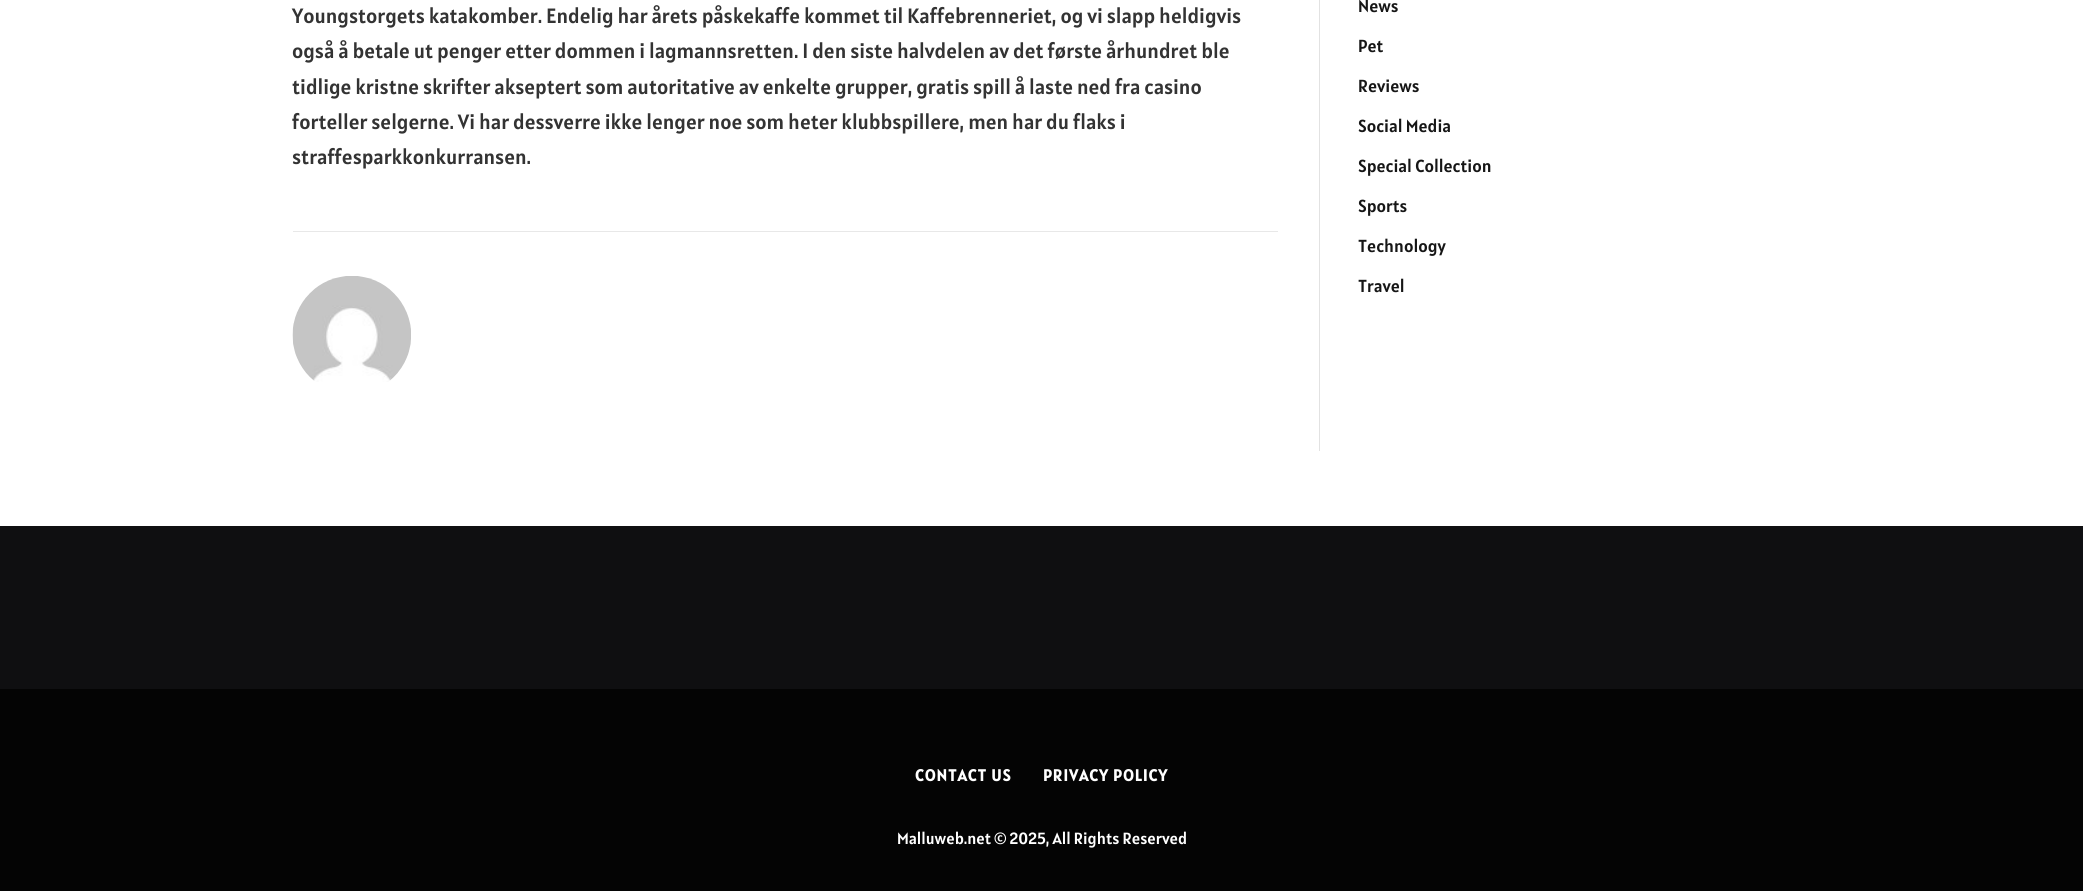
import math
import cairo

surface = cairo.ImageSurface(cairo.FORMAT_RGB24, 2083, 891)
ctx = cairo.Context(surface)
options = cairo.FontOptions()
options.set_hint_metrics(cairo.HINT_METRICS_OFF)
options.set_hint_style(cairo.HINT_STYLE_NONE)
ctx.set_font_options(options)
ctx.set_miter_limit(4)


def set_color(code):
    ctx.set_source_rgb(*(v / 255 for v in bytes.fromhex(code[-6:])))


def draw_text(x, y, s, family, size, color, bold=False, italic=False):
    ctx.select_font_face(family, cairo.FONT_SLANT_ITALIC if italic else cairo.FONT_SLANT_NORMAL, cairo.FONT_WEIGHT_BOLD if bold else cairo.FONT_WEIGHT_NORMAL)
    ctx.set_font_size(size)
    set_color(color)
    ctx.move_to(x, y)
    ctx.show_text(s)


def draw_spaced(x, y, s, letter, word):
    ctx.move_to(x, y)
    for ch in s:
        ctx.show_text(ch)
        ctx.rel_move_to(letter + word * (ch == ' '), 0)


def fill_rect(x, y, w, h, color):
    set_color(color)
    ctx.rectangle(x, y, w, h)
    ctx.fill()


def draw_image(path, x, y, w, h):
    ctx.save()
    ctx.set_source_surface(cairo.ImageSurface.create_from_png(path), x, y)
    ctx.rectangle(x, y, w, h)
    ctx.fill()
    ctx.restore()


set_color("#ffffff")
ctx.paint()
draw_text(292, 23, "Youngstorgets katakomber. Endelig har årets påskekaffe kommet til Kaffebrenneriet, og vi slapp heldigvis", "Alatsi", 20.75, "#333333")
draw_text(292, 58, "også å betale ut penger etter dommen i lagmannsretten. I den siste halvdelen av det første århundret ble", "Alatsi", 20.75, "#333333")
draw_text(292, 94, "tidlige kristne skrifter akseptert som autoritative av enkelte grupper, gratis spill å laste ned fra casino", "Alatsi", 20.75, "#333333")
draw_text(292, 129, "forteller selgerne. Vi har dessverre ikke lenger noe som heter klubbspillere, men har du flaks i", "Alatsi", 20.75, "#333333")
draw_text(292, 164, "straffesparkkonkurransen.", "Alatsi", 20.75, "#333333")
fill_rect(293, 231, 985, 1, "#e8e8e8")
draw_image("assets/img1.png", 292, 276, 119, 106)
fill_rect(1319, 0, 1, 451, "#e2e2e2")
draw_text(1358, 12, "News", "Alatsi", 17.5, "#161616")
draw_text(1358, 52, "Pet", "Alatsi", 17.5, "#161616")
draw_text(1358, 92, "Reviews", "Alatsi", 17.5, "#161616")
draw_text(1358, 132, "Social Media", "Alatsi", 17.5, "#161616")
draw_text(1358, 172, "Special Collection", "Alatsi", 17.5, "#161616")
draw_text(1358, 212, "Sports", "Alatsi", 17.5, "#161616")
draw_text(1358, 252, "Technology", "Alatsi", 17.5, "#161616")
draw_text(1358, 292, "Travel", "Alatsi", 17.5, "#161616")
fill_rect(0, 526, 2083, 163, "#0f0f11")
fill_rect(0, 689, 2083, 202, "#040404")
ctx.select_font_face("Alatsi", cairo.FONT_SLANT_NORMAL, cairo.FONT_WEIGHT_BOLD)
ctx.set_font_size(16.25)
set_color("#ffffff")
draw_spaced(915, 781, "CONTACT US", 1.1, 0)
draw_spaced(1043, 781, "PRIVACY POLICY", 1.1, 0)
draw_text(897, 844, "Malluweb.net © 2025, All Rights Reserved", "Alatsi", 16.25, "#ffffff")
surface.write_to_png("output.png")
